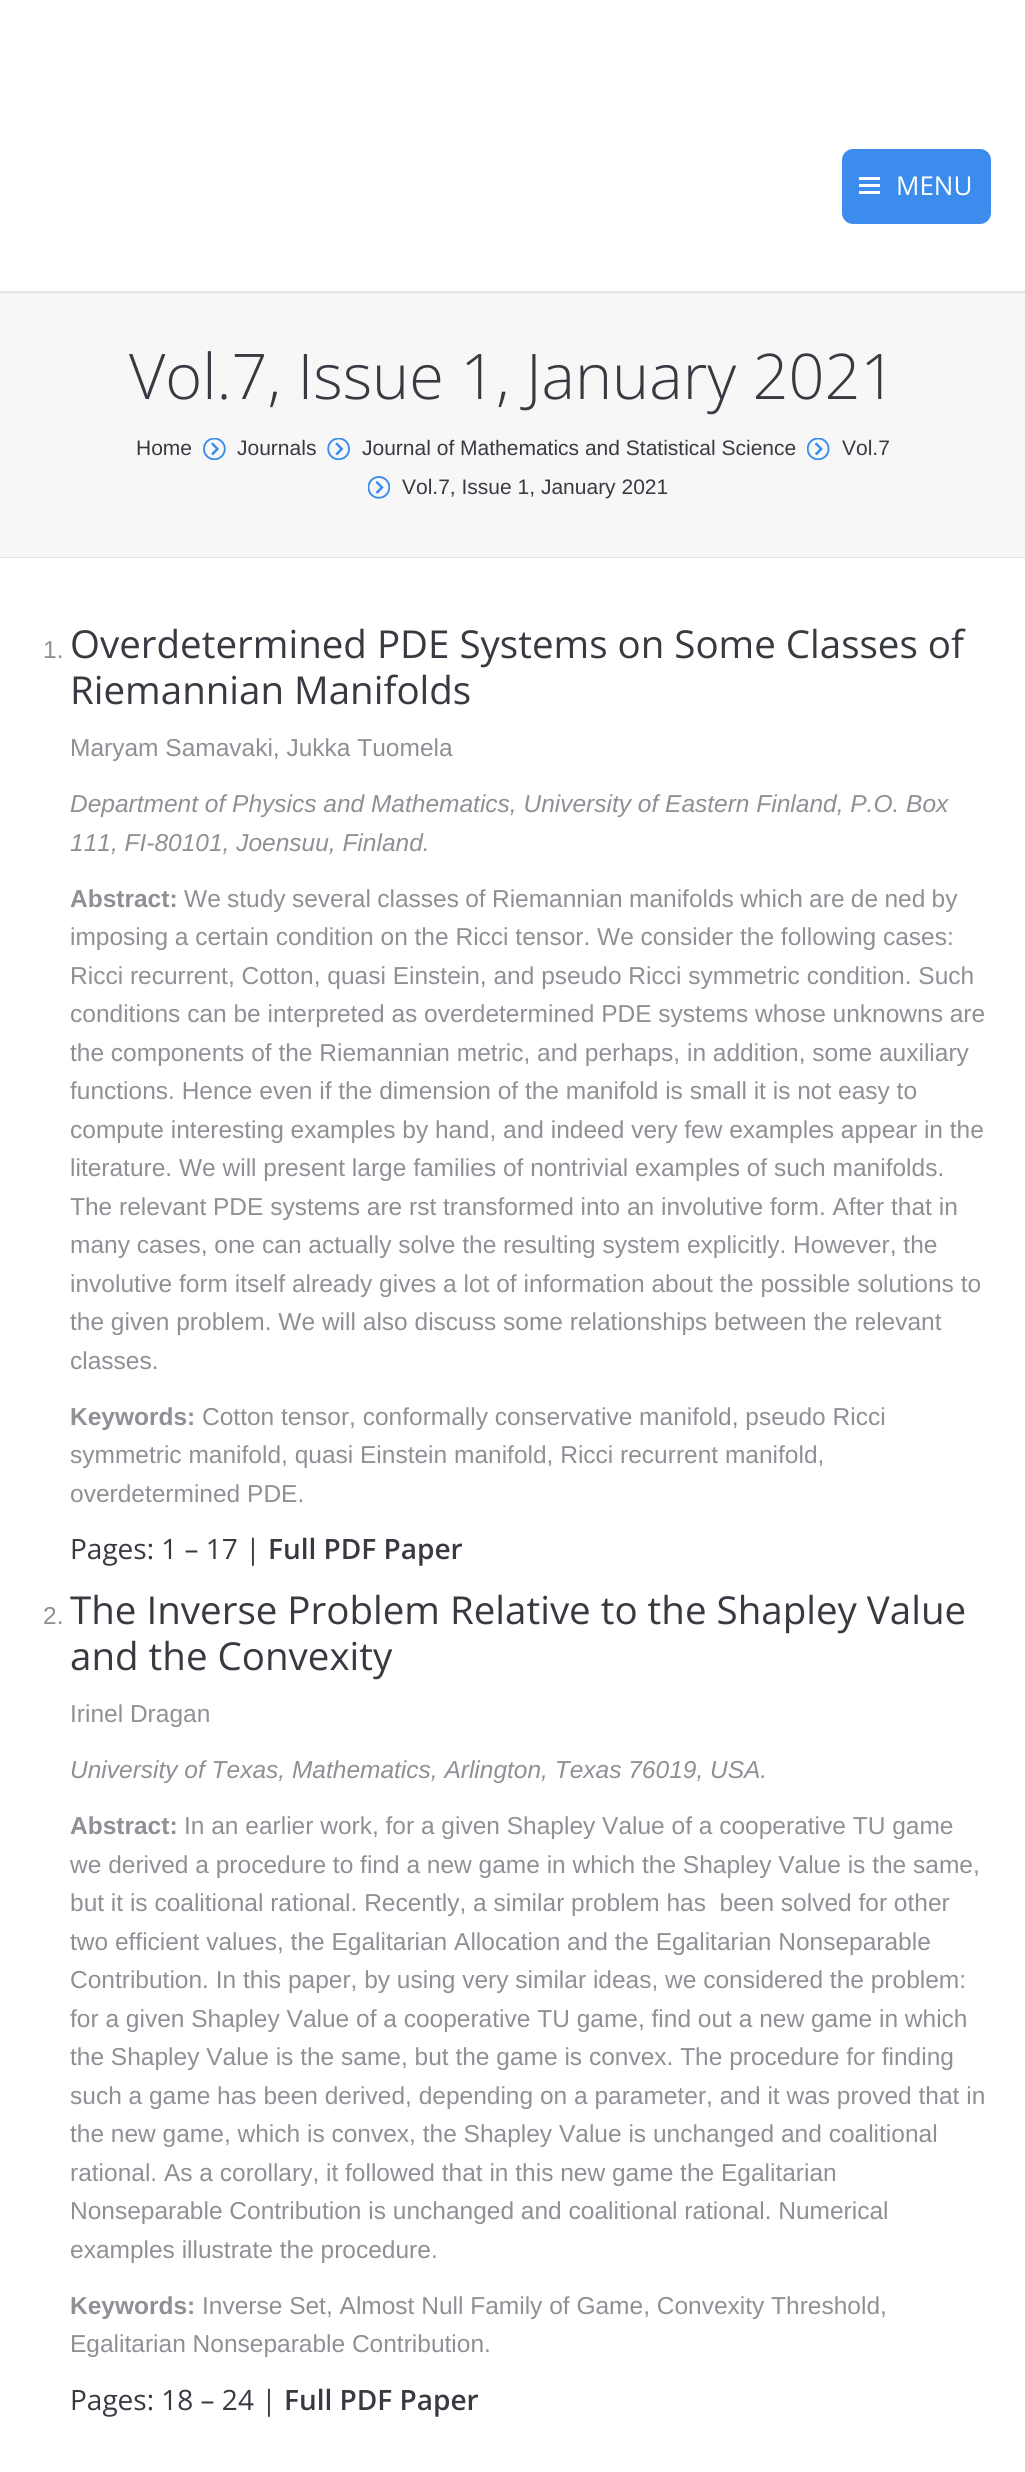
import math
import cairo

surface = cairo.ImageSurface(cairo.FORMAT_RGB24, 1025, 2472)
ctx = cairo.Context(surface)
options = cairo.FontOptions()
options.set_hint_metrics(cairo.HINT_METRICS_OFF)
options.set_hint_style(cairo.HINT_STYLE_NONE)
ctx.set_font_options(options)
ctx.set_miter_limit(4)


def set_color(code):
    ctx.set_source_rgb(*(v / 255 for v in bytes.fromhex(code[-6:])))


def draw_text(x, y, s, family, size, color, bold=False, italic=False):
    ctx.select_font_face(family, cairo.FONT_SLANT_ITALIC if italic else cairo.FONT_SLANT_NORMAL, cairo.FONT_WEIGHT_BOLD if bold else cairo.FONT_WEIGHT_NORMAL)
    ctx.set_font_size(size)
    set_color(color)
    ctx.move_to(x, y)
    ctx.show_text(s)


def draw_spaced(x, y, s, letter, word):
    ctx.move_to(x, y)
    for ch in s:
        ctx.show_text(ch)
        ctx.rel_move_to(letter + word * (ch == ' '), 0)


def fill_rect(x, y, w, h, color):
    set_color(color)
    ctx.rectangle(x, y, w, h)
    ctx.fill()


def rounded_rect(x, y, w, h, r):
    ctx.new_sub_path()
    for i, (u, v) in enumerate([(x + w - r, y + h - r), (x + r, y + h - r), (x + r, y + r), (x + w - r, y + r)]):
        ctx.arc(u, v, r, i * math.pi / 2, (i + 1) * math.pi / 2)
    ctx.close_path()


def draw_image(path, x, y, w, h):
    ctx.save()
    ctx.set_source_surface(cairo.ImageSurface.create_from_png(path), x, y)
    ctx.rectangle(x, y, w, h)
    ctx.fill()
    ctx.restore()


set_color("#ffffff")
ctx.paint()
fill_rect(0, 293, 1025, 264, "#f7f7f7")
fill_rect(0, 291, 1025, 1, "#e5e8ea")
fill_rect(0, 292, 1025, 1, "#dee1e3")
set_color("#3b8ced")
rounded_rect(842, 149, 149, 75, 11)
ctx.fill()
fill_rect(859, 191, 21, 3, "#ffffff")
fill_rect(859, 184, 21, 3, "#ffffff")
fill_rect(859, 177, 21, 3, "#ffffff")
draw_text(896, 195, "MENU", "Open Sans", 26, "#ffffff")
draw_text(129, 399, "Vol.7, Issue 1, January 2021", "Open Sans Light", 63, "#373a41")
draw_text(136, 455, "Home", "Liberation Sans", 21, "#373a41")
draw_image("assets/img1.png", 203, 438, 23, 22)
draw_text(237, 455, "Journals", "Liberation Sans", 21, "#373a41")
draw_image("assets/img2.png", 327, 438, 23, 22)
draw_text(362, 455, "Journal of Mathematics and Statistical Science", "Liberation Sans", 21, "#373a41")
draw_image("assets/img3.png", 807, 438, 23, 22)
draw_text(842, 455, "Vol.7", "Liberation Sans", 21, "#373a41")
draw_image("assets/img4.png", 368, 476, 22, 23)
draw_text(402, 494, "Vol.7, Issue 1, January 2021", "Liberation Sans", 21, "#373a41")
fill_rect(0, 557, 1025, 1, "#e3e6e8")
draw_text(43, 658, "1.", "Liberation Sans", 24.5, "#8d9095")
draw_text(70, 658, "Overdetermined PDE Systems on Some Classes of", "Open Sans", 38.5, "#373a41")
draw_text(70, 704, "Riemannian Manifolds", "Open Sans", 38.5, "#373a41")
draw_text(70, 756, "Maryam Samavaki, Jukka Tuomela", "Liberation Sans", 24.5, "#8d9095")
draw_text(70, 812, "Department of Physics and Mathematics, University of Eastern Finland, P.O. Box", "Liberation Sans", 24.5, "#8d9095", italic=True)
draw_text(70, 851, "111, FI-80101, Joensuu, Finland.", "Liberation Sans", 24.5, "#8d9095", italic=True)
draw_text(70, 907, "Abstract:", "Liberation Sans", 24.5, "#8d9095", bold=True)
ctx.select_font_face("Liberation Sans")
draw_spaced(184, 907, "We study several classes of Riemannian manifolds which are de ned by", 0, -0.5)
draw_text(70, 945, "imposing a certain condition on the Ricci tensor. We consider the following cases:", "Liberation Sans", 24.5, "#8d9095")
draw_text(70, 984, "Ricci recurrent, Cotton, quasi Einstein, and pseudo Ricci symmetric condition. Such", "Liberation Sans", 24.5, "#8d9095")
draw_text(70, 1022, "conditions can be interpreted as overdetermined PDE systems whose unknowns are", "Liberation Sans", 24.5, "#8d9095")
draw_text(70, 1061, "the components of the Riemannian metric, and perhaps, in addition, some auxiliary", "Liberation Sans", 24.5, "#8d9095")
draw_text(70, 1099, "functions. Hence even if the dimension of the manifold is small it is not easy to", "Liberation Sans", 24.5, "#8d9095")
draw_text(70, 1138, "compute interesting examples by hand, and indeed very few examples appear in the", "Liberation Sans", 24.5, "#8d9095")
draw_text(70, 1176, "literature. We will present large families of nontrivial examples of such manifolds.", "Liberation Sans", 24.5, "#8d9095")
draw_text(70, 1215, "The relevant PDE systems are rst transformed into an involutive form. After that in", "Liberation Sans", 24.5, "#8d9095")
draw_text(70, 1253, "many cases, one can actually solve the resulting system explicitly. However, the", "Liberation Sans", 24.5, "#8d9095")
draw_text(70, 1292, "involutive form itself already gives a lot of information about the possible solutions to", "Liberation Sans", 24.5, "#8d9095")
draw_text(70, 1330, "the given problem. We will also discuss some relationships between the relevant", "Liberation Sans", 24.5, "#8d9095")
draw_text(70, 1369, "classes.", "Liberation Sans", 24.5, "#8d9095")
draw_text(70, 1425, "Keywords:", "Liberation Sans", 24.5, "#8d9095", bold=True)
draw_text(202, 1425, "Cotton tensor, conformally conservative manifold, pseudo Ricci", "Liberation Sans", 24.5, "#8d9095")
draw_text(70, 1463, "symmetric manifold, quasi Einstein manifold, Ricci recurrent manifold,", "Liberation Sans", 24.5, "#8d9095")
draw_text(70, 1502, "overdetermined PDE.", "Liberation Sans", 24.5, "#8d9095")
draw_text(70, 1559, "Pages: 1 – 17 |", "Open Sans", 28, "#373a41")
draw_text(268, 1559, "Full PDF Paper", "Open Sans SemiBold", 28, "#373a41")
draw_text(43, 1624, "2.", "Liberation Sans", 24.5, "#8d9095")
draw_text(70, 1624, "The Inverse Problem Relative to the Shapley Value", "Open Sans", 38.5, "#373a41")
draw_text(70, 1670, "and the Convexity", "Open Sans", 38.5, "#373a41")
draw_text(70, 1722, "Irinel Dragan", "Liberation Sans", 24.5, "#8d9095")
draw_text(70, 1778, "University of Texas, Mathematics, Arlington, Texas 76019, USA.", "Liberation Sans", 24.5, "#8d9095", italic=True)
draw_text(70, 1834, "Abstract:", "Liberation Sans", 24.5, "#8d9095", bold=True)
draw_text(184, 1834, "In an earlier work, for a given Shapley Value of a cooperative TU game", "Liberation Sans", 24.5, "#8d9095")
draw_text(70, 1873, "we derived a procedure to find a new game in which the Shapley Value is the same,", "Liberation Sans", 24.5, "#8d9095")
draw_text(70, 1911, "but it is coalitional rational. Recently, a similar problem has  been solved for other", "Liberation Sans", 24.5, "#8d9095")
draw_text(70, 1950, "two efficient values, the Egalitarian Allocation and the Egalitarian Nonseparable", "Liberation Sans", 24.5, "#8d9095")
draw_text(70, 1988, "Contribution. In this paper, by using very similar ideas, we considered the problem:", "Liberation Sans", 24.5, "#8d9095")
draw_text(70, 2027, "for a given Shapley Value of a cooperative TU game, find out a new game in which", "Liberation Sans", 24.5, "#8d9095")
draw_text(70, 2065, "the Shapley Value is the same, but the game is convex. The procedure for finding", "Liberation Sans", 24.5, "#8d9095")
draw_text(70, 2104, "such a game has been derived, depending on a parameter, and it was proved that in", "Liberation Sans", 24.5, "#8d9095")
draw_text(70, 2142, "the new game, which is convex, the Shapley Value is unchanged and coalitional", "Liberation Sans", 24.5, "#8d9095")
draw_text(70, 2181, "rational. As a corollary, it followed that in this new game the Egalitarian", "Liberation Sans", 24.5, "#8d9095")
draw_text(70, 2219, "Nonseparable Contribution is unchanged and coalitional rational. Numerical", "Liberation Sans", 24.5, "#8d9095")
draw_text(70, 2258, "examples illustrate the procedure.", "Liberation Sans", 24.5, "#8d9095")
draw_text(70, 2314, "Keywords:", "Liberation Sans", 24.5, "#8d9095", bold=True)
draw_text(202, 2314, "Inverse Set, Almost Null Family of Game, Convexity Threshold,", "Liberation Sans", 24.5, "#8d9095")
draw_text(70, 2352, "Egalitarian Nonseparable Contribution.", "Liberation Sans", 24.5, "#8d9095")
draw_text(70, 2410, "Pages: 18 – 24 |", "Open Sans", 28, "#373a41")
draw_text(284, 2410, "Full PDF Paper", "Open Sans SemiBold", 28, "#373a41")
surface.write_to_png("output.png")
